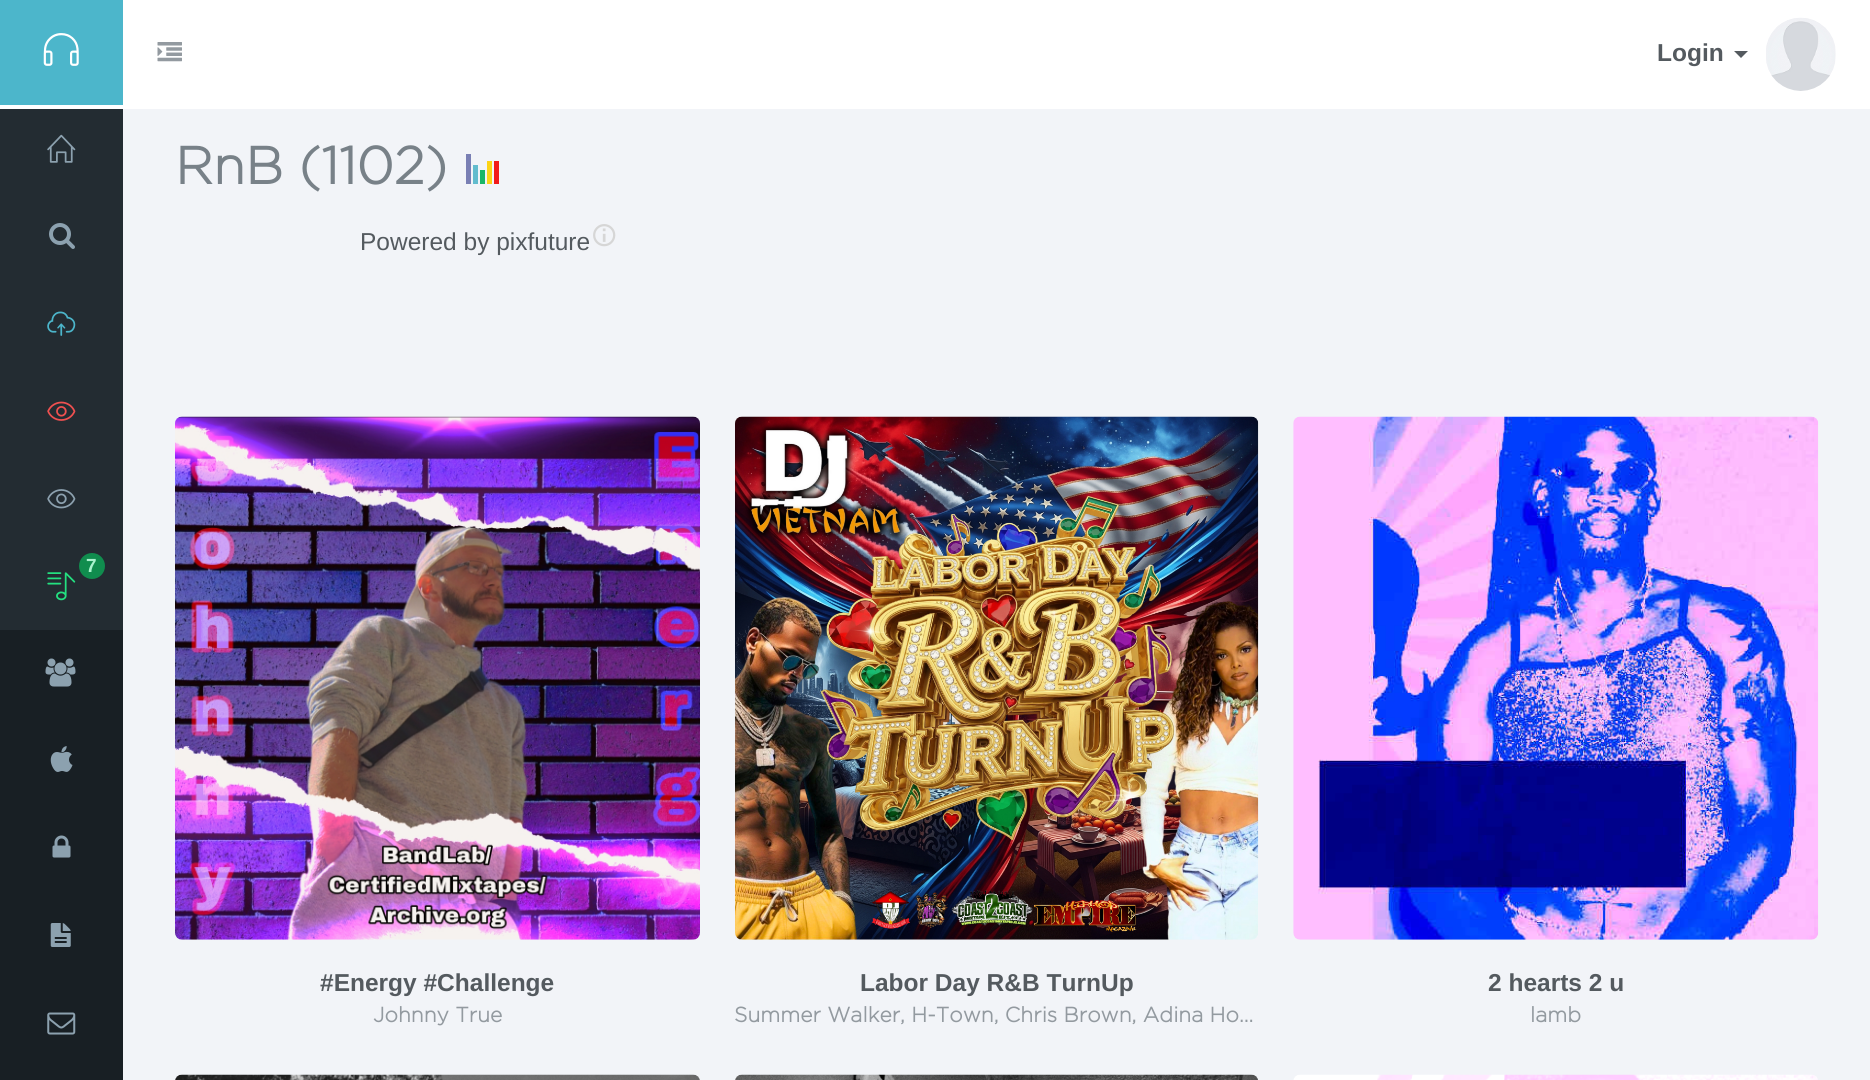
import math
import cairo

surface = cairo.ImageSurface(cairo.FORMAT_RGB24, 1870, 1080)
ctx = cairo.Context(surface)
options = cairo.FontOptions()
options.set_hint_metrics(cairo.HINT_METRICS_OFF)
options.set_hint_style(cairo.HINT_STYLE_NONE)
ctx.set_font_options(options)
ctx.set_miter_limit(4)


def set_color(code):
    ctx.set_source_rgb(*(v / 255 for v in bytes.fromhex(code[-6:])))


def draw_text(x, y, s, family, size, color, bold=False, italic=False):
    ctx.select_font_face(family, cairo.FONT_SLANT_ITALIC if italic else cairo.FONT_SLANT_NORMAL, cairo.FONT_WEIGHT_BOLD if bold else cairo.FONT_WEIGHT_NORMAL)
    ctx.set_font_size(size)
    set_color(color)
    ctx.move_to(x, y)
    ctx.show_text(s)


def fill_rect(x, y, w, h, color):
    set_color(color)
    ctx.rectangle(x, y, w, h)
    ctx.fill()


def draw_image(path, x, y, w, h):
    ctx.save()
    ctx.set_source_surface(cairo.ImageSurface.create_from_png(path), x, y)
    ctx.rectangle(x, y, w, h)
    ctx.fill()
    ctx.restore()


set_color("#f2f4f8")
ctx.paint()
fill_rect(0, 0, 1870, 109, "#ffffff")
fill_rect(0, 0, 123, 105, "#4cb6cb")
draw_image("assets/img1.png", 43, 33, 36, 33)
draw_image("assets/img2.png", 157, 42, 25, 20)
draw_text(1657, 61, "Login", "Liberation Sans", 24.5, "#545a5f", bold=True)
ctx.new_path()
ctx.move_to(1734, 51)
ctx.line_to(1748, 51)
ctx.line_to(1741, 58)
ctx.close_path()
ctx.fill()
draw_image("assets/img3.png", 1766, 17, 70, 74)
fill_rect(0, 630, 123, 450, "#181f24")
fill_rect(0, 109, 123, 521, "#232c32")
draw_image("assets/img4.png", 47, 134, 29, 29)
draw_image("assets/img5.png", 49, 223, 26, 26)
draw_image("assets/img6.png", 47, 311, 29, 25)
draw_image("assets/img7.png", 47, 401, 29, 20)
draw_image("assets/img8.png", 47, 489, 29, 20)
set_color("#108d4e")
ctx.arc(92, 566, 13, 0, 2 * math.pi)
ctx.fill()
draw_text(86, 572, "7", "Liberation Sans", 19, "#a9f3ce", bold=True)
draw_image("assets/img9.png", 47, 572, 29, 29)
draw_image("assets/img10.png", 45, 658, 31, 29)
draw_image("assets/img11.png", 50, 746, 23, 26)
draw_image("assets/img12.png", 52, 835, 19, 23)
draw_image("assets/img13.png", 50, 923, 21, 24)
draw_image("assets/img14.png", 47, 1012, 29, 23)
draw_text(175, 184, "RnB (1102)", "Gotham", 52.5, "#788188", bold=True)
fill_rect(466, 154, 5, 30, "#797fb4")
fill_rect(473, 165, 5, 19, "#62bcce")
fill_rect(480, 170, 5, 14, "#1ab667")
fill_rect(487, 161, 5, 23, "#fcd417")
fill_rect(494, 161, 5, 23, "#f21b1b")
draw_text(360, 250, "Powered by pixfuture", "Liberation Sans", 24.5, "#545a5f")
draw_image("assets/img15.png", 593, 224, 23, 23)
draw_image("assets/img16.png", 175, 416, 525, 524)
draw_text(320, 991, "#Energy #Challenge", "Liberation Sans", 24.5, "#545a5f", bold=True)
draw_text(373, 1022, "Johnny True", "Gotham", 21, "#939aa0", bold=True)
draw_image("assets/img17.png", 735, 416, 524, 524)
draw_text(860, 991, "Labor Day R&B TurnUp", "Liberation Sans", 24.5, "#545a5f", bold=True)
draw_text(734, 1022, "Summer Walker, H-Town, Chris Brown, Adina Ho…", "Gotham", 21, "#939aa0", bold=True)
draw_image("assets/img18.png", 1293, 416, 526, 524)
draw_text(1488, 991, "2 hearts 2 u", "Liberation Sans", 24.5, "#545a5f", bold=True)
draw_text(1530, 1022, "lamb", "Gotham", 21, "#939aa0", bold=True)
draw_image("assets/img19.png", 175, 1074, 525, 6)
draw_image("assets/img20.png", 735, 1074, 523, 6)
draw_image("assets/img21.png", 1293, 1074, 525, 6)
surface.write_to_png("output.png")
